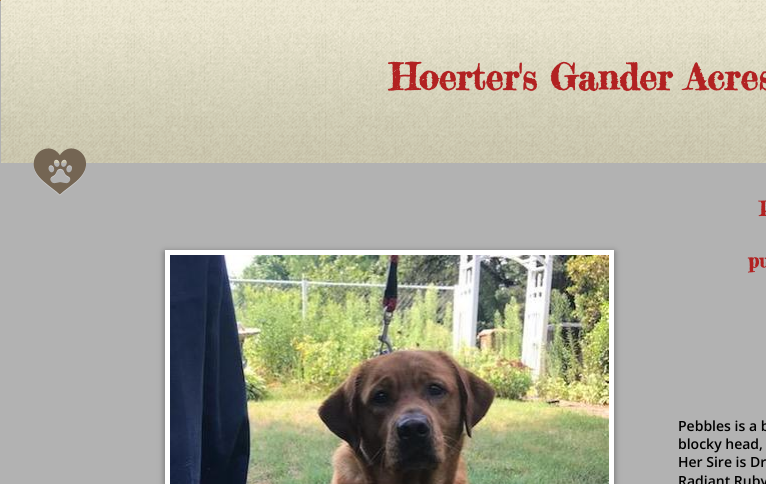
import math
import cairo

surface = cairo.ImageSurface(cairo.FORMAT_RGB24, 766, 484)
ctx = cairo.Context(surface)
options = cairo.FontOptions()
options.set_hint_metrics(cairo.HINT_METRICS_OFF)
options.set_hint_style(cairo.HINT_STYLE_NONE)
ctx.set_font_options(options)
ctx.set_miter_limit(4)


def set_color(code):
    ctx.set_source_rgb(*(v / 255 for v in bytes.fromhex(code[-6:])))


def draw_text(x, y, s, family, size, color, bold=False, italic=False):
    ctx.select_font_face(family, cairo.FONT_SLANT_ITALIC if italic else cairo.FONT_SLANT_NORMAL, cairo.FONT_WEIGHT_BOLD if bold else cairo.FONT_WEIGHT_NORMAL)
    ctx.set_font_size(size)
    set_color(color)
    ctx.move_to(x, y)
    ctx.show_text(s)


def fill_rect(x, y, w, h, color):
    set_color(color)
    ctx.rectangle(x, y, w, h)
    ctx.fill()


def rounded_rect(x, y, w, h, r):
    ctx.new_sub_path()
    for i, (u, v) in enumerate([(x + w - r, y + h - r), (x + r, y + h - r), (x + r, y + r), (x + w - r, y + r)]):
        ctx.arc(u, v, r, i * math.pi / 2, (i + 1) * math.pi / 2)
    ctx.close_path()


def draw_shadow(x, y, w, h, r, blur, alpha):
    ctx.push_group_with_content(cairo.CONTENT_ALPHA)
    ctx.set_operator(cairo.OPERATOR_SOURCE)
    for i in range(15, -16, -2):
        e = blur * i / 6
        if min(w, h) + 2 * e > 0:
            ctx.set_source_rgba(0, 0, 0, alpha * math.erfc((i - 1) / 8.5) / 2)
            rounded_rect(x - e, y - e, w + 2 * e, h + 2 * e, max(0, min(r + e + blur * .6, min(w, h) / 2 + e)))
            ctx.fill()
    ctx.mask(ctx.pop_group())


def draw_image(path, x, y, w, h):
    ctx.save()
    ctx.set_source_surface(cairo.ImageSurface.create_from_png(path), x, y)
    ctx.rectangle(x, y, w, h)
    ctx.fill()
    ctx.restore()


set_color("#b2b2b2")
ctx.paint()
fill_rect(0, 0, 1, 1, "#a38154")
draw_image("assets/img1.png", 1, 0, 765, 163)
draw_text(389, 90, "Hoerter's Gander Acres", "Fredericka the Great", 36, "#b22222", bold=True)
draw_image("assets/img2.png", 33, 148, 54, 48)
set_color("#323232")
draw_shadow(165, 252, 449, 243, 0, 3.5, 0.6)
ctx.rectangle(167.5, 252.5, 444, 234)
set_color("#ffffff")
ctx.set_line_width(5)
ctx.stroke()
draw_image("assets/img3.png", 170, 255, 439, 229)
draw_text(759, 216, "I", "Fredericka the Great", 20, "#b22222", bold=True)
draw_text(748, 268, "pu", "Fredericka the Great", 20, "#b22222", bold=True)
draw_text(678, 431, "Pebbles is a b", "Open Sans SemiBold", 14, "#000000")
draw_text(678, 449, "blocky head,", "Open Sans SemiBold", 14, "#000000")
draw_text(678, 467, "Her Sire is Dr", "Open Sans SemiBold", 14, "#000000")
draw_text(678, 486, "Radiant Ruby", "Open Sans SemiBold", 14, "#000000")
surface.write_to_png("output.png")
